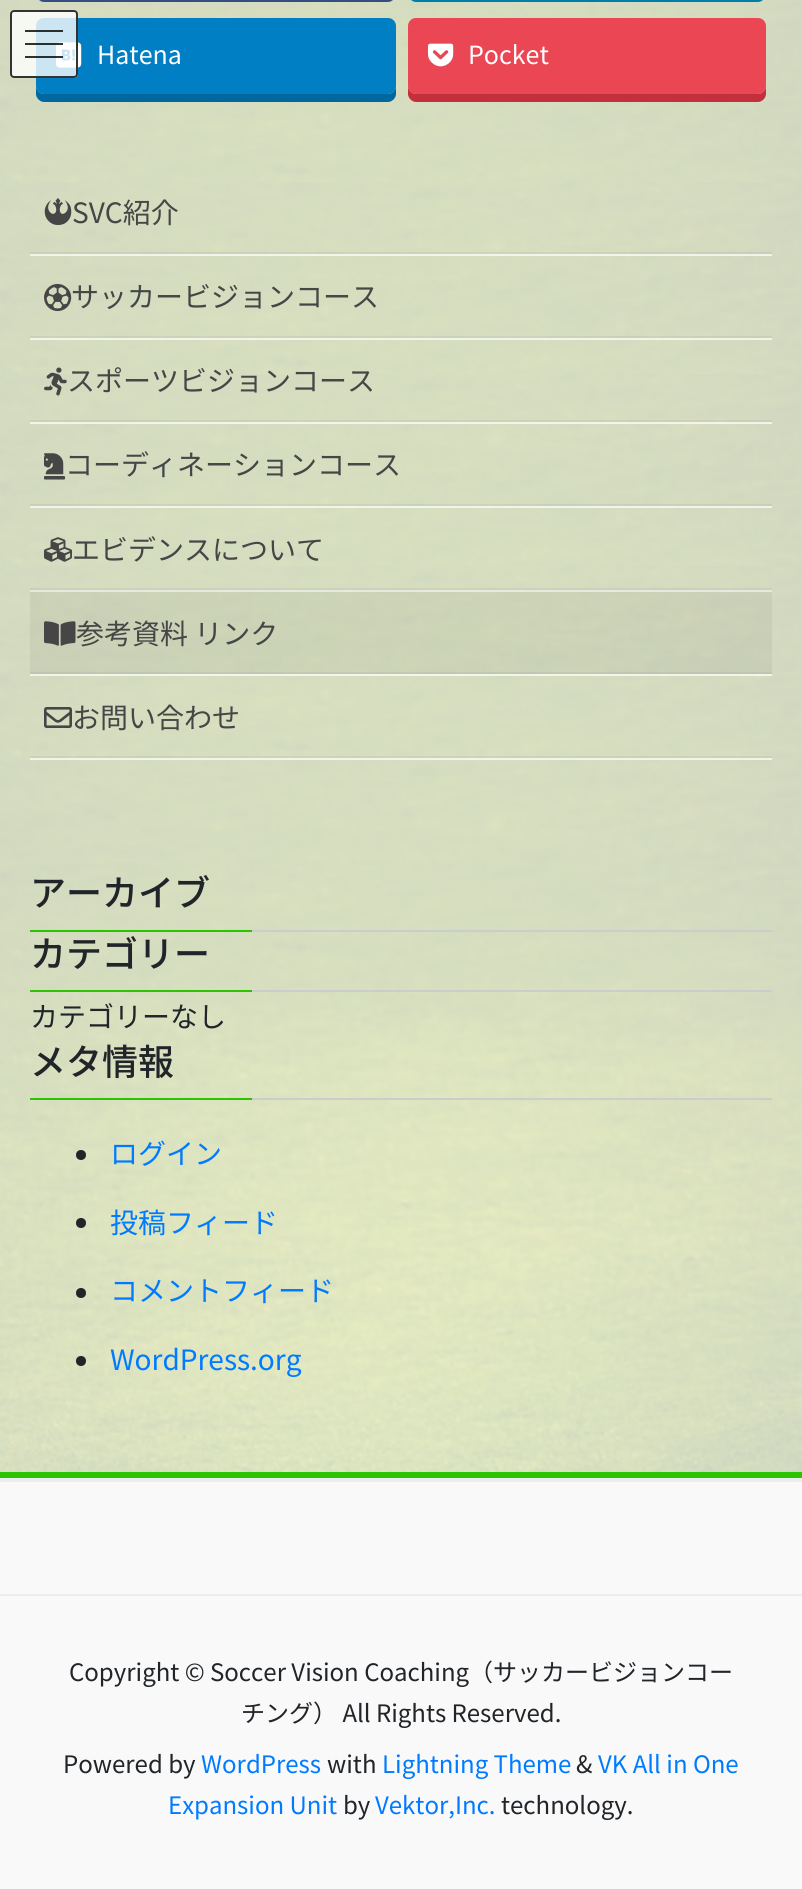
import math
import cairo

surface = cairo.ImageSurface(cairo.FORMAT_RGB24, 802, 1889)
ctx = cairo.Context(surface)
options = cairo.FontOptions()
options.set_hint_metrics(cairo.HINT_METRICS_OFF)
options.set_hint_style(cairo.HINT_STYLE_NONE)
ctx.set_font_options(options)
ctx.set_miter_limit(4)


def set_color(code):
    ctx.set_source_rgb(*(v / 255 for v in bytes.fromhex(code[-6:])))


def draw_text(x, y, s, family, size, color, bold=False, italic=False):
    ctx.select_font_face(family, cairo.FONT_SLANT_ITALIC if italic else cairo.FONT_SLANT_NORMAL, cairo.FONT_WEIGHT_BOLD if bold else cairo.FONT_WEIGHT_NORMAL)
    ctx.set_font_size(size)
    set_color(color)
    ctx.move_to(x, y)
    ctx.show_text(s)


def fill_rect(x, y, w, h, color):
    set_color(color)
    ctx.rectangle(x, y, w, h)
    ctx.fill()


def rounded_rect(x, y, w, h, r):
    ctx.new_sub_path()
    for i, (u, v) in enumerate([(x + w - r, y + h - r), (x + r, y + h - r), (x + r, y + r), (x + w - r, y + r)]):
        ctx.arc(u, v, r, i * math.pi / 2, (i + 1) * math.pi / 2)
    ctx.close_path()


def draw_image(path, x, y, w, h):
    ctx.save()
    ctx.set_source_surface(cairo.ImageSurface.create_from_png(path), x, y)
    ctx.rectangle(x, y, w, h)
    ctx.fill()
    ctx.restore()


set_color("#ffffff")
ctx.paint()
draw_image("assets/img1.png", 0, 0, 802, 1472)
set_color("#00679f")
ctx.new_path()
ctx.move_to(36, 86)
ctx.line_to(36, 94)
ctx.curve_to(36, 98, 40, 102, 44, 102)
ctx.line_to(388, 102)
ctx.curve_to(392, 102, 396, 98, 396, 94)
ctx.line_to(396, 86)
ctx.curve_to(396, 90, 392, 94, 388, 94)
ctx.line_to(44, 94)
ctx.curve_to(40, 94, 36, 90, 36, 86)
ctx.close_path()
ctx.fill()
set_color("#007fc5")
rounded_rect(36, 18, 360, 76, 8)
ctx.fill()
draw_image("assets/img2.png", 56, 42, 26, 26)
ctx.set_source_rgba(1, 1, 1, 0.8)
rounded_rect(10, 10, 68, 68, 4)
ctx.fill()
ctx.set_source_rgba(0, 0, 0, 0.8)
ctx.rectangle(25, 30, 38, 2)
ctx.fill()
ctx.rectangle(25, 43, 38, 2)
ctx.fill()
ctx.rectangle(25, 56, 38, 2)
ctx.fill()
rounded_rect(11, 11, 66, 66, 3)
set_color("#333333")
ctx.stroke()
set_color("#344e84")
ctx.new_path()
ctx.move_to(36, -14)
ctx.line_to(36, -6)
ctx.curve_to(36, -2, 40, 2, 44, 2)
ctx.line_to(388, 2)
ctx.curve_to(392, 2, 396, -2, 396, -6)
ctx.line_to(396, -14)
ctx.curve_to(396, -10, 392, -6, 388, -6)
ctx.line_to(44, -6)
ctx.curve_to(40, -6, 36, -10, 36, -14)
ctx.close_path()
ctx.fill()
set_color("#007eaa")
ctx.new_path()
ctx.move_to(408, -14)
ctx.line_to(408, -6)
ctx.curve_to(408, -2, 412, 2, 416, 2)
ctx.line_to(758, 2)
ctx.curve_to(762, 2, 766, -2, 766, -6)
ctx.line_to(766, -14)
ctx.curve_to(766, -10, 762, -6, 758, -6)
ctx.line_to(416, -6)
ctx.curve_to(412, -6, 408, -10, 408, -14)
ctx.close_path()
ctx.fill()
draw_text(97, 64, "Hatena", "Noto Sans JP", 25, "#ffffff")
set_color("#c1303c")
ctx.new_path()
ctx.move_to(408, 86)
ctx.line_to(408, 94)
ctx.curve_to(408, 98, 412, 102, 416, 102)
ctx.line_to(758, 102)
ctx.curve_to(762, 102, 766, 98, 766, 94)
ctx.line_to(766, 86)
ctx.curve_to(766, 90, 762, 94, 758, 94)
ctx.line_to(416, 94)
ctx.curve_to(412, 94, 408, 90, 408, 86)
ctx.close_path()
ctx.fill()
set_color("#ea4654")
rounded_rect(408, 18, 358, 76, 8)
ctx.fill()
draw_image("assets/img3.png", 428, 43, 26, 24)
draw_text(468, 64, "Pocket", "Noto Sans JP", 25, "#ffffff")
ctx.set_source_rgba(1, 1, 1, 0.7)
ctx.rectangle(30, 254, 742, 2)
ctx.fill()
ctx.set_source_rgba(0, 0, 0, 0.05)
ctx.rectangle(30, 252, 742, 2)
ctx.fill()
draw_image("assets/img4.png", 44, 198, 28, 27)
draw_text(72, 223, "SVC紹介", "Noto Sans JP", 28, "#464646")
ctx.set_source_rgba(1, 1, 1, 0.7)
ctx.rectangle(30, 338, 742, 2)
ctx.fill()
ctx.set_source_rgba(0, 0, 0, 0.05)
ctx.rectangle(30, 336, 742, 2)
ctx.fill()
draw_image("assets/img5.png", 44, 283, 28, 29)
draw_text(71, 307, "サッカービジョンコース", "Noto Sans JP", 28, "#464646")
ctx.set_source_rgba(1, 1, 1, 0.7)
ctx.rectangle(30, 422, 742, 2)
ctx.fill()
ctx.set_source_rgba(0, 0, 0, 0.05)
ctx.rectangle(30, 420, 742, 2)
ctx.fill()
draw_image("assets/img6.png", 44, 367, 23, 29)
draw_text(67, 391, "スポーツビジョンコース", "Noto Sans JP", 28, "#464646")
ctx.set_source_rgba(1, 1, 1, 0.7)
ctx.rectangle(30, 506, 742, 2)
ctx.fill()
ctx.set_source_rgba(0, 0, 0, 0.05)
ctx.rectangle(30, 504, 742, 2)
ctx.fill()
draw_image("assets/img7.png", 44, 453, 21, 27)
draw_text(65, 475, "コーディネーションコース", "Noto Sans JP", 28, "#464646")
ctx.set_source_rgba(1, 1, 1, 0.7)
ctx.rectangle(30, 590, 742, 2)
ctx.fill()
ctx.set_source_rgba(0, 0, 0, 0.05)
ctx.rectangle(30, 588, 742, 2)
ctx.fill()
draw_image("assets/img8.png", 44, 537, 28, 25)
draw_text(72, 560, "エビデンスについて", "Noto Sans JP", 28, "#464646")
ctx.set_source_rgba(1, 1, 1, 0.7)
ctx.rectangle(30, 674, 742, 2)
ctx.fill()
ctx.set_source_rgba(0, 0, 0, 0.05)
ctx.rectangle(30, 590, 742, 84)
ctx.fill()
ctx.rectangle(30, 672, 742, 2)
ctx.fill()
draw_image("assets/img9.png", 44, 621, 32, 25)
draw_text(76, 644, "参考資料 リンク", "Noto Sans JP", 28, "#464646")
ctx.set_source_rgba(1, 1, 1, 0.7)
ctx.rectangle(30, 758, 742, 2)
ctx.fill()
ctx.set_source_rgba(0, 0, 0, 0.05)
ctx.rectangle(30, 756, 742, 2)
ctx.fill()
draw_image("assets/img10.png", 44, 707, 28, 21)
draw_text(72, 728, "お問い合わせ", "Noto Sans JP", 28, "#464646")
fill_rect(252, 930, 520, 2, "#cccccc")
draw_text(30, 906, "アーカイブ", "Noto Sans JP Medium", 36, "#212529")
fill_rect(30, 930, 222, 2, "#2ac400")
fill_rect(252, 990, 520, 2, "#cccccc")
draw_text(30, 967, "カテゴリー", "Noto Sans JP Medium", 36, "#212529")
fill_rect(30, 990, 222, 2, "#2ac400")
draw_text(30, 1027, "カテゴリーなし", "Noto Sans JP", 28, "#212529")
fill_rect(252, 1098, 520, 2, "#cccccc")
draw_text(30, 1075, "メタ情報", "Noto Sans JP Medium", 36, "#212529")
fill_rect(30, 1098, 222, 2, "#2ac400")
set_color("#212529")
ctx.new_path()
ctx.arc(81, 1155, 5, 0, 2 * math.pi)
ctx.fill()
draw_text(110, 1164, "ログイン", "Noto Sans JP", 28, "#007bff")
set_color("#212529")
ctx.new_path()
ctx.arc(81, 1223, 5, 0, 2 * math.pi)
ctx.fill()
draw_text(110, 1233, "投稿フィード", "Noto Sans JP", 28, "#007bff")
set_color("#212529")
ctx.new_path()
ctx.arc(81, 1293, 5, 0, 2 * math.pi)
ctx.fill()
draw_text(110, 1301, "コメントフィード", "Noto Sans JP", 28, "#007bff")
set_color("#212529")
ctx.new_path()
ctx.arc(81, 1361, 5, 0, 2 * math.pi)
ctx.fill()
draw_text(110, 1370, "WordPress.org", "Noto Sans JP", 28, "#007bff")
fill_rect(0, 1482, 802, 407, "#f9f9f9")
fill_rect(0, 1472, 802, 6, "#2ac400")
fill_rect(0, 1478, 802, 4, "#ededed")
fill_rect(0, 1594, 802, 2, "#ededed")
draw_text(69, 1681, "Copyright © Soccer Vision Coaching（サッカービジョンコー", "Noto Sans JP", 24, "#212529")
draw_text(241, 1722, "チング） All Rights Reserved.", "Noto Sans JP", 24, "#212529")
draw_text(63, 1773, "Powered by", "Noto Sans JP", 24, "#212529")
draw_text(201, 1773, "WordPress", "Noto Sans JP", 24, "#007bff")
draw_text(327, 1773, "with", "Noto Sans JP", 24, "#212529")
draw_text(382, 1773, "Lightning Theme", "Noto Sans JP", 24, "#007bff")
draw_text(576, 1773, "&", "Noto Sans JP", 24, "#212529")
draw_text(598, 1773, "VK All in One", "Noto Sans JP", 24, "#007bff")
draw_text(168, 1814, "Expansion Unit", "Noto Sans JP", 24, "#007bff")
draw_text(343, 1814, "by", "Noto Sans JP", 24, "#212529")
draw_text(375, 1814, "Vektor,Inc.", "Noto Sans JP", 24, "#007bff")
draw_text(501, 1814, "technology.", "Noto Sans JP", 24, "#212529")
surface.write_to_png("output.png")
